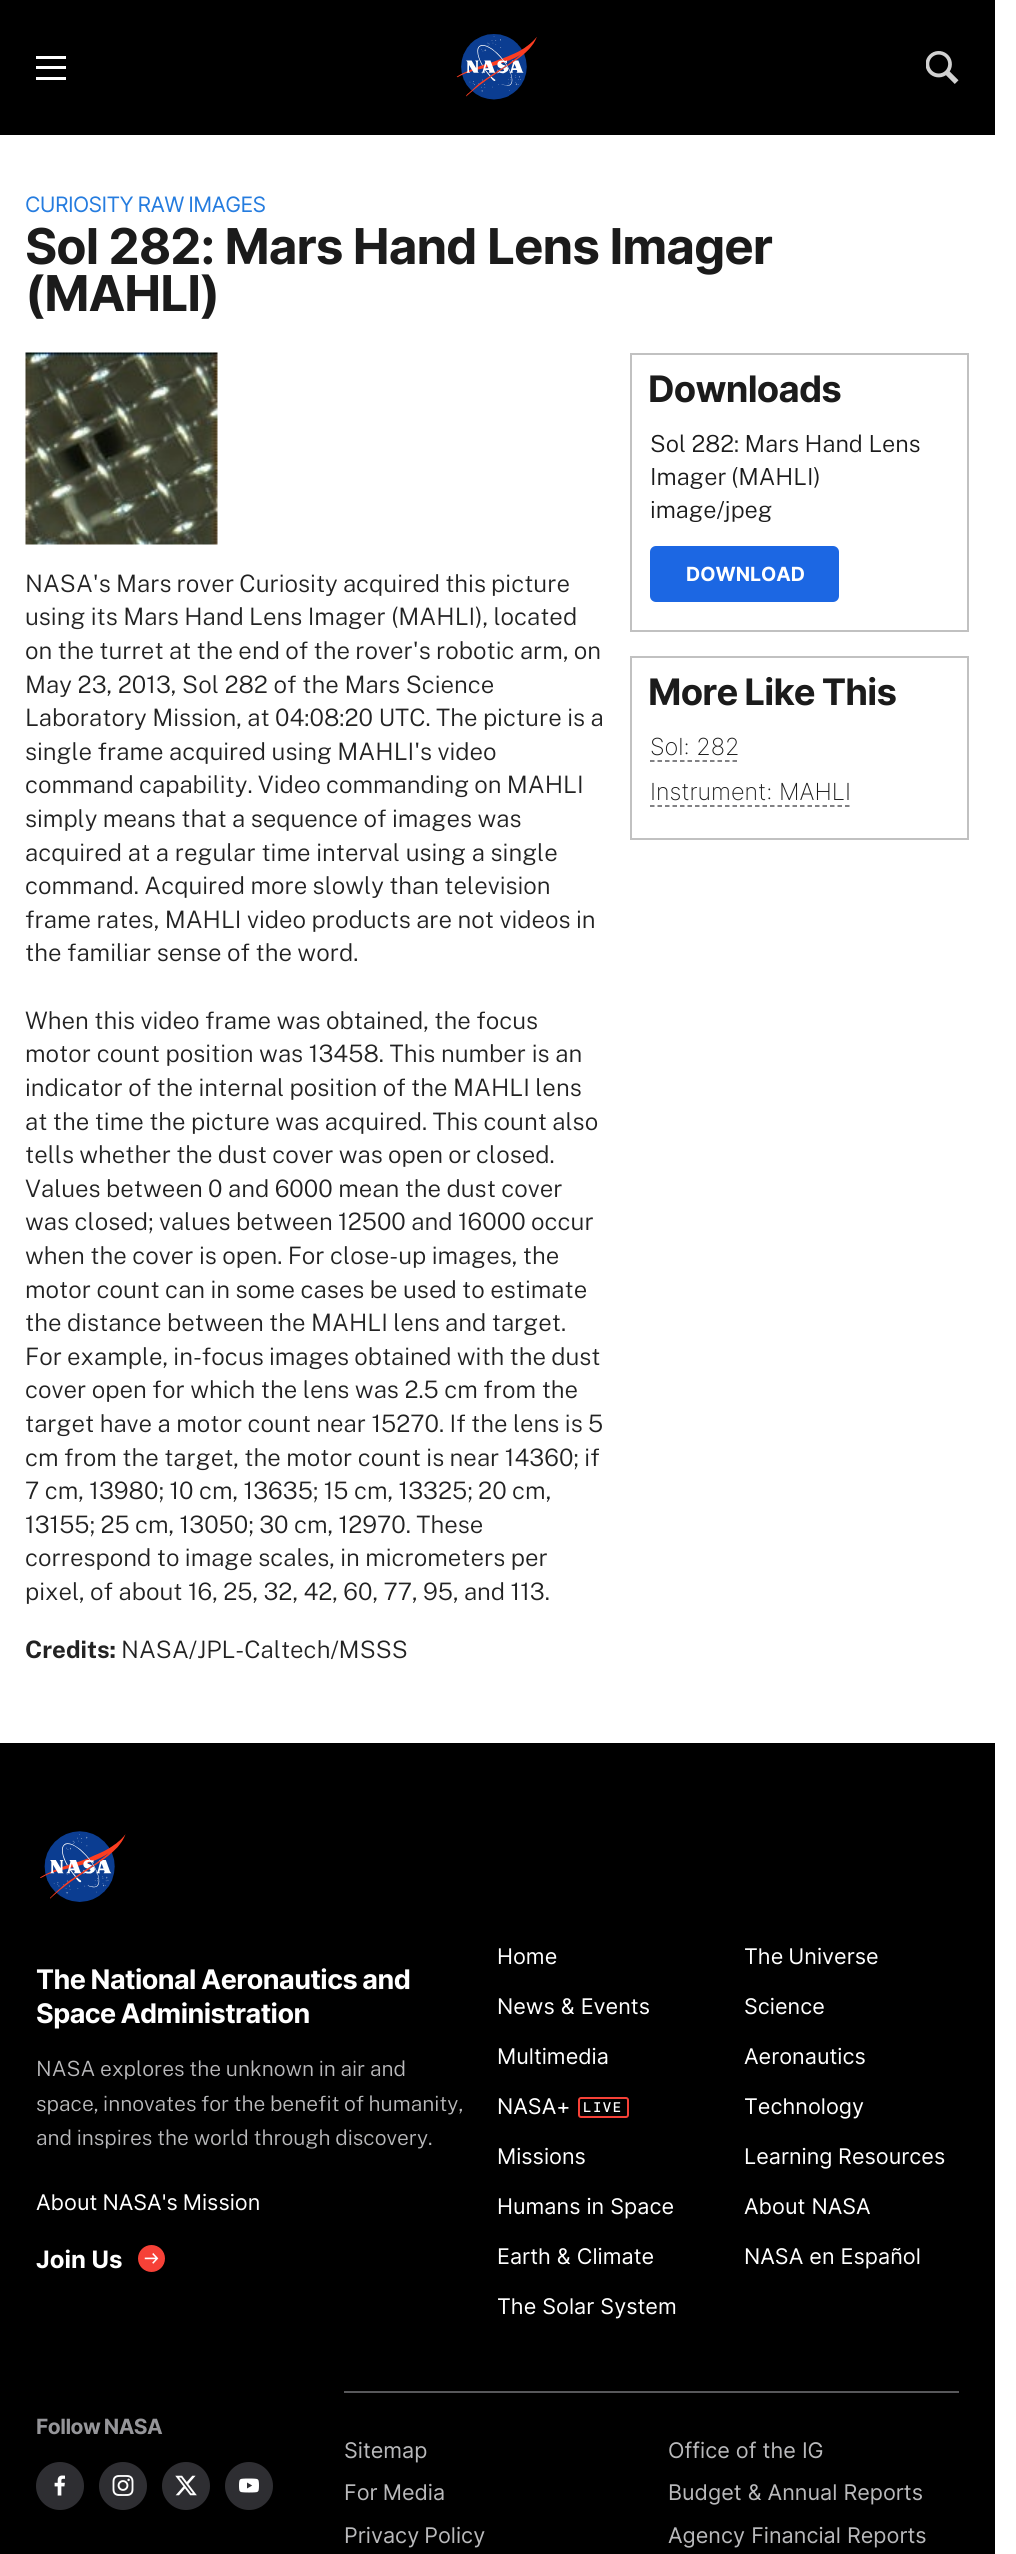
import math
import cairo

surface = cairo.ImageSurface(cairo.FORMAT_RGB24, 1016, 2554)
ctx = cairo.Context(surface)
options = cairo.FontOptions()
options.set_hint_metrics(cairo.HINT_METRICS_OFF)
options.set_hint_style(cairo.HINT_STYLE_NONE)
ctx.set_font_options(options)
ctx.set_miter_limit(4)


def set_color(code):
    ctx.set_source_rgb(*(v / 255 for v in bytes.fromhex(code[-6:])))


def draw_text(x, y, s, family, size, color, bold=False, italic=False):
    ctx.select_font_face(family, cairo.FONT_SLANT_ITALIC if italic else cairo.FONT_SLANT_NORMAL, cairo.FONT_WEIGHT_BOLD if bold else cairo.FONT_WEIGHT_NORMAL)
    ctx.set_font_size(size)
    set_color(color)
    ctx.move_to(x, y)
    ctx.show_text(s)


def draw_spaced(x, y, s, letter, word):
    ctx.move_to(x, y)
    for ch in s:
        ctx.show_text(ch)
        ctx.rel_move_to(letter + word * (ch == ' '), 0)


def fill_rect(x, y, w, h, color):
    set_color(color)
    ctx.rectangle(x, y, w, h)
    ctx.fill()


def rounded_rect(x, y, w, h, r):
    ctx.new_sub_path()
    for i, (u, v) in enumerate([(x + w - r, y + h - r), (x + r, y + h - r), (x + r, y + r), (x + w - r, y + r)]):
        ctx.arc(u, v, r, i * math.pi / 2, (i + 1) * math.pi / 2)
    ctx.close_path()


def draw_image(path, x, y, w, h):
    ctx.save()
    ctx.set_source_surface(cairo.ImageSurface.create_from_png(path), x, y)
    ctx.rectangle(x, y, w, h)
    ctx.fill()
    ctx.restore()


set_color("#ffffff")
ctx.paint()
fill_rect(0, 0, 995, 135, "#000000")
fill_rect(36, 56, 30, 3, "#ffffff")
fill_rect(36, 66, 30, 3, "#ffffff")
fill_rect(36, 77, 30, 3, "#ffffff")
draw_image("assets/img1.png", 456, 34, 81, 66)
draw_image("assets/img2.png", 926, 51, 33, 33)
ctx.select_font_face("Inter")
ctx.set_font_size(21.25)
set_color("#257cdf")
draw_spaced(25, 212, "CURIOSITY RAW IMAGES", -0.6, -1)
ctx.select_font_face("Inter", cairo.FONT_SLANT_NORMAL, cairo.FONT_WEIGHT_BOLD)
ctx.set_font_size(49.4)
set_color("#1b1b1b")
draw_spaced(25, 264, "Sol 282: Mars Hand Lens Imager", -1, 0)
draw_spaced(25, 311, "(MAHLI)", -1, 0)
draw_image("assets/img3.png", 25, 352, 193, 193)
ctx.select_font_face("Public Sans Light")
ctx.set_font_size(24)
set_color("#222222")
draw_spaced(25, 592, "NASA's Mars rover Curiosity acquired this picture", 0, -0.75)
draw_spaced(25, 625, "using its Mars Hand Lens Imager (MAHLI), located", 0, -0.5)
draw_spaced(25, 659, "on the turret at the end of the rover's robotic arm, on", 0, -0.6)
draw_spaced(25, 693, "May 23, 2013, Sol 282 of the Mars Science", 0, -0.25)
draw_spaced(25, 726, "Laboratory Mission, at 04:08:20 UTC. The picture is a", 0, -0.5)
draw_spaced(25, 760, "single frame acquired using MAHLI's video", 0, -0.5)
draw_spaced(25, 793, "command capability. Video commanding on MAHLI", 0, -0.75)
draw_spaced(25, 827, "simply means that a sequence of images was", 0, -0.5)
draw_spaced(25, 861, "acquired at a regular time interval using a single", 0, -0.25)
draw_spaced(25, 894, "command. Acquired more slowly than television", 0, -0.6)
draw_spaced(25, 928, "frame rates, MAHLI video products are not videos in", 0, -0.5)
draw_spaced(25, 961, "the familiar sense of the word.", 0, -0.5)
draw_spaced(25, 1029, "When this video frame was obtained, the focus", 0, -0.5)
draw_spaced(25, 1062, "motor count position was 13458. This number is an", 0, -0.25)
draw_spaced(25, 1096, "indicator of the internal position of the MAHLI lens", 0, -0.5)
draw_spaced(25, 1130, "at the time the picture was acquired. This count also", 0, -0.5)
draw_spaced(25, 1163, "tells whether the dust cover was open or closed.", 0, -0.75)
draw_spaced(25, 1197, "Values between 0 and 6000 mean the dust cover", 0, -0.5)
draw_spaced(25, 1230, "was closed; values between 12500 and 16000 occur", 0, -0.5)
draw_spaced(25, 1264, "when the cover is open. For close-up images, the", 0, -0.5)
draw_spaced(25, 1298, "motor count can in some cases be used to estimate", 0, -0.5)
draw_spaced(25, 1331, "the distance between the MAHLI lens and target.", 0, -0.5)
draw_spaced(25, 1365, "For example, in-focus images obtained with the dust", 0, -0.75)
draw_spaced(25, 1398, "cover open for which the lens was 2.5 cm from the", 0, -0.4)
draw_spaced(25, 1432, "target have a motor count near 15270. If the lens is 5", 0, -0.5)
draw_spaced(25, 1466, "cm from the target, the motor count is near 14360; if", 0, -0.5)
draw_spaced(25, 1499, "7 cm, 13980; 10 cm, 13635; 15 cm, 13325; 20 cm,", 0, -0.5)
draw_spaced(25, 1533, "13155; 25 cm, 13050; 30 cm, 12970. These", 0, -0.5)
draw_spaced(25, 1566, "correspond to image scales, in micrometers per", 0, -0.5)
draw_spaced(25, 1600, "pixel, of about 16, 25, 32, 42, 60, 77, 95, and 113.", 0, -0.5)
draw_text(25, 1658, "Credits:", "Public Sans", 24, "#222222", bold=True)
draw_text(121, 1658, "NASA/JPL-Caltech/MSSS", "Public Sans Light", 24, "#222222")
ctx.rectangle(631, 354, 337, 277)
set_color("#c1c1c1")
ctx.stroke()
ctx.select_font_face("Inter", cairo.FONT_SLANT_NORMAL, cairo.FONT_WEIGHT_BOLD)
ctx.set_font_size(36.5)
set_color("#1b1b1b")
draw_spaced(648, 402, "Downloads", -0.75, 0)
ctx.select_font_face("Public Sans Light")
ctx.set_font_size(23.5)
draw_spaced(650, 452, "Sol 282: Mars Hand Lens", 0, -0.25)
draw_spaced(650, 485, "Imager (MAHLI)", 0, -1)
draw_text(650, 518, "image/jpeg", "Public Sans Light", 23.5, "#1b1b1b")
set_color("#1c67e3")
rounded_rect(650, 546, 189, 56, 6)
ctx.fill()
draw_text(686, 581, "DOWNLOAD", "Inter", 19.5, "#ffffff", bold=True)
ctx.rectangle(631, 657, 337, 182)
set_color("#c1c1c1")
ctx.stroke()
ctx.set_font_size(36.5)
set_color("#1b1b1b")
draw_spaced(648, 705, "More Like This", -0.75, -1)
draw_text(650, 755, "Sol: 282", "Inter ExtraLight", 23.5, "#1b1b1b")
ctx.new_path()
ctx.move_to(650, 761)
ctx.line_to(739.5, 761)
set_color("#58585b")
ctx.set_line_width(1.5)
ctx.set_dash([4.5, 3])
ctx.stroke()
draw_text(650, 800, "Instrument: MAHLI", "Inter ExtraLight", 23.5, "#1b1b1b")
ctx.new_path()
ctx.move_to(650, 806)
ctx.line_to(851, 806)
set_color("#58585b")
ctx.stroke()
fill_rect(0, 1743, 995, 811, "#000000")
draw_image("assets/img4.png", 40, 1831, 86, 71)
ctx.select_font_face("Inter", cairo.FONT_SLANT_NORMAL, cairo.FONT_WEIGHT_BOLD)
ctx.set_font_size(27)
set_color("#ffffff")
draw_spaced(36, 1989, "The National Aeronautics and", -0.55, -0.5)
draw_spaced(36, 2023, "Space Administration", -0.55, -1)
ctx.select_font_face("Public Sans Light")
ctx.set_font_size(21)
set_color("#b9b9bb")
draw_spaced(36, 2076, "NASA explores the unknown in air and", 0, -0.5)
draw_spaced(36, 2111, "space, innovates for the benefit of humanity,", 0, -0.75)
draw_spaced(36, 2145, "and inspires the world through discovery.", 0, -0.5)
ctx.select_font_face("Inter")
ctx.set_font_size(21.6)
set_color("#ffffff")
draw_spaced(36, 2210, "About NASA's Mission", 0, -1)
draw_text(36, 2268, "Join Us", "Inter", 24, "#ffffff", bold=True)
draw_image("assets/img5.png", 138, 2245, 27, 27)
draw_text(497, 1964, "Home", "Inter", 21.6, "#ffffff")
draw_spaced(744, 1964, "The Universe", 0, -1)
draw_text(497, 2014, "News & Events", "Inter", 21.6, "#ffffff")
draw_text(744, 2014, "Science", "Inter", 21.6, "#ffffff")
draw_text(497, 2064, "Multimedia", "Inter", 21.6, "#ffffff")
draw_text(744, 2064, "Aeronautics", "Inter", 21.6, "#ffffff")
draw_text(497, 2114, "NASA+", "Inter", 21.6, "#ffffff")
rounded_rect(579, 2098, 49, 19, 2)
set_color("#f64137")
ctx.set_line_width(2)
ctx.set_dash([])
ctx.stroke()
ctx.select_font_face("DM Mono Medium")
ctx.set_font_size(14)
set_color("#ffffff")
draw_spaced(583, 2112, "LIVE", 1.5, 0)
draw_text(744, 2114, "Technology", "Inter", 21.6, "#ffffff")
draw_text(497, 2164, "Missions", "Inter", 21.6, "#ffffff")
draw_spaced(744, 2164, "Learning Resources", 0, -0.5)
draw_text(497, 2214, "Humans in Space", "Inter", 21.6, "#ffffff")
draw_text(744, 2214, "About NASA", "Inter", 21.6, "#ffffff")
draw_text(497, 2264, "Earth & Climate", "Inter", 21.6, "#ffffff")
draw_text(744, 2264, "NASA en Español", "Inter", 21.6, "#ffffff")
draw_text(497, 2314, "The Solar System", "Inter", 21.6, "#ffffff")
ctx.select_font_face("Inter", cairo.FONT_SLANT_NORMAL, cairo.FONT_WEIGHT_BOLD)
ctx.set_font_size(21)
set_color("#959599")
draw_spaced(36, 2434, "Follow NASA", -0.5, -1)
set_color("#2e2e32")
ctx.new_path()
ctx.arc(60, 2486, 24, 0, 2 * math.pi)
ctx.fill()
draw_image("assets/img6.png", 54, 2475, 11, 21)
ctx.arc(123, 2486, 24, 0, 2 * math.pi)
ctx.fill()
draw_image("assets/img7.png", 112, 2475, 22, 21)
ctx.arc(186, 2486, 24, 0, 2 * math.pi)
ctx.fill()
draw_image("assets/img8.png", 175, 2475, 22, 21)
ctx.arc(249, 2486, 24, 0, 2 * math.pi)
ctx.fill()
draw_image("assets/img9.png", 239, 2478, 20, 15)
fill_rect(344, 2391, 615, 2, "#58585b")
draw_text(344, 2458, "Sitemap", "Inter", 21.6, "#b9b9bb")
draw_text(668, 2458, "Office of the IG", "Inter", 21.6, "#b9b9bb")
draw_spaced(344, 2500, "For Media", 0, -1)
draw_text(668, 2500, "Budget & Annual Reports", "Inter", 21.6, "#b9b9bb")
draw_spaced(344, 2543, "Privacy Policy", 0, -1)
draw_text(668, 2543, "Agency Financial Reports", "Inter", 21.6, "#b9b9bb")
surface.write_to_png("output.png")
